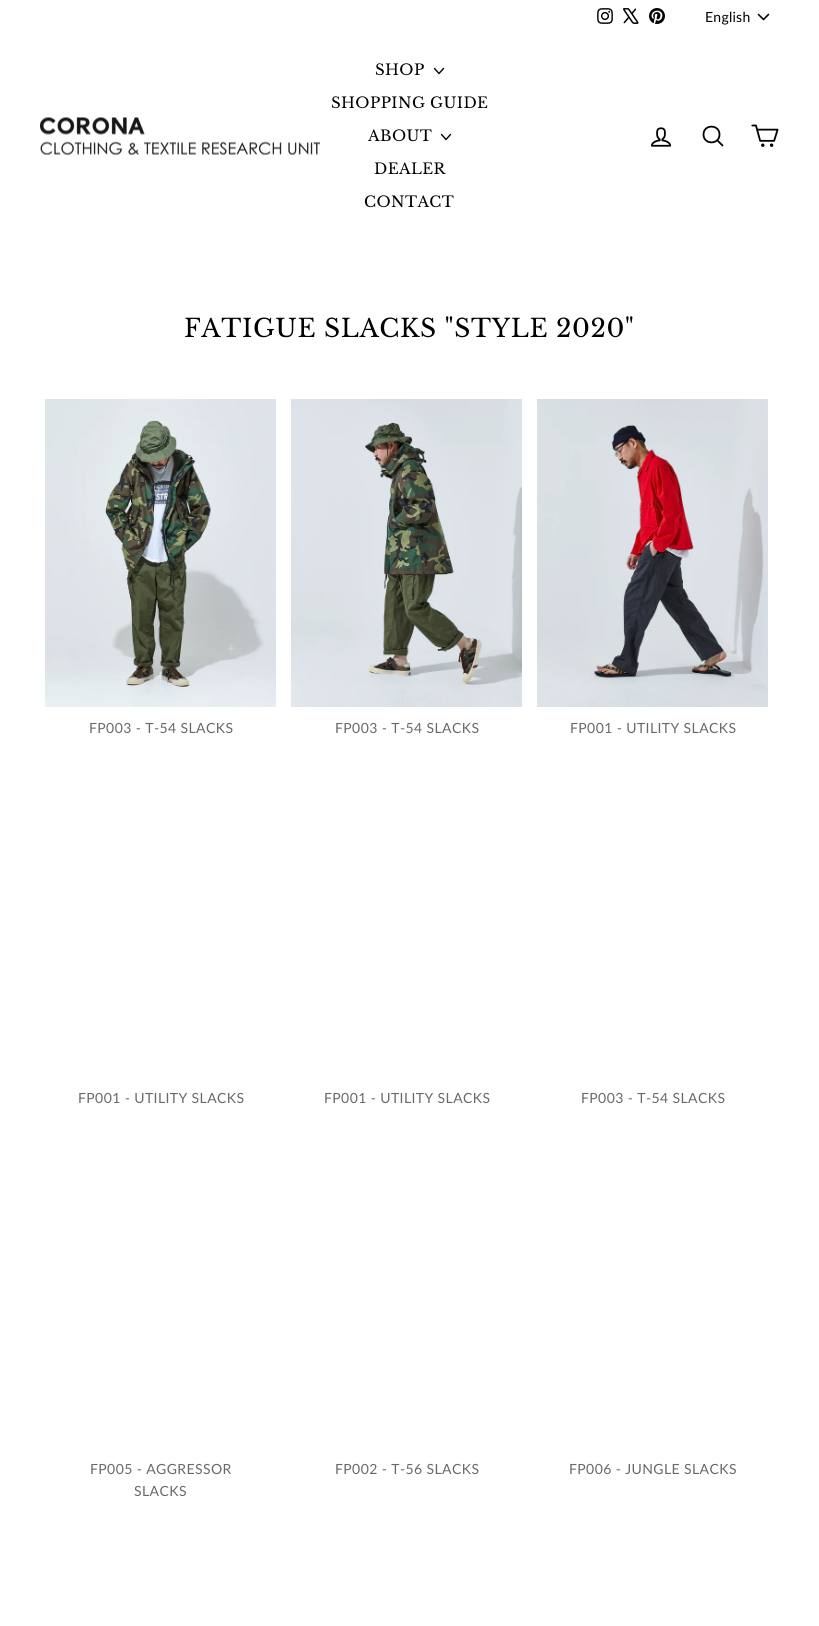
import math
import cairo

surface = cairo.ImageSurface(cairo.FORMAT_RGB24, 819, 1626)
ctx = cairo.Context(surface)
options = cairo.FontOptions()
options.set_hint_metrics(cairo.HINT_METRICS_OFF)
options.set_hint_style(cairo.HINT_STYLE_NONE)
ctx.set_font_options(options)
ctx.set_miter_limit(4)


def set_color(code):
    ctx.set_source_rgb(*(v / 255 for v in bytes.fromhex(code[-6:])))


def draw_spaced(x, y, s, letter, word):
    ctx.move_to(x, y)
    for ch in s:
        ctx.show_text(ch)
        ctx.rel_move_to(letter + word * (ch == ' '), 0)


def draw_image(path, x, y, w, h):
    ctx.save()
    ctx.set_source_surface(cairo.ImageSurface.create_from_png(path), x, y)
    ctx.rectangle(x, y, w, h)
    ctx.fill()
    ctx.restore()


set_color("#ffffff")
ctx.paint()
draw_image("assets/img1.png", 597, 8, 16, 16)
draw_image("assets/img2.png", 623, 8, 16, 16)
draw_image("assets/img3.png", 649, 8, 16, 16)
ctx.select_font_face("Lato")
ctx.set_font_size(14)
set_color("#000000")
draw_spaced(705, 22, "English", 0.25, 0)
ctx.new_path()
ctx.move_to(758.5, 14.5)
ctx.line_to(763.5, 19.5)
ctx.line_to(768.5, 14.5)
ctx.set_line_width(1.6)
ctx.set_line_cap(cairo.LINE_CAP_ROUND)
ctx.set_line_join(cairo.LINE_JOIN_ROUND)
ctx.stroke()
draw_image("assets/img4.png", 40, 117, 280, 38)
ctx.select_font_face("Libre Baskerville")
ctx.set_font_size(15)
draw_spaced(375, 75, "SHOP", 0.4, 0)
ctx.new_path()
ctx.move_to(434.5, 68.5)
ctx.line_to(439, 73.5)
ctx.line_to(443.5, 68.5)
ctx.set_line_width(1.4)
ctx.stroke()
draw_spaced(331, 108, "SHOPPING GUIDE", 0.4, 0)
draw_spaced(368, 141, "ABOUT", 0.4, 0)
ctx.new_path()
ctx.move_to(441.5, 134.5)
ctx.line_to(446, 139.5)
ctx.line_to(450.5, 134.5)
ctx.stroke()
draw_spaced(374, 174, "DEALER", 0.4, 0)
draw_spaced(364, 207, "CONTACT", 0.4, 0)
draw_image("assets/img5.png", 650, 127, 22, 20)
ctx.new_path()
ctx.move_to(719.5, 134.5)
ctx.curve_to(719.5, 145, 703.5, 145, 703.5, 134.5)
ctx.curve_to(703.5, 124, 719.5, 124, 719.5, 134.5)
ctx.close_path()
ctx.move_to(722.5, 145.5)
ctx.line_to(717.5, 140.5)
ctx.set_line_width(1.8)
ctx.stroke()
draw_image("assets/img6.png", 751, 124, 28, 23)
ctx.set_font_size(25)
draw_spaced(184, 337, "FATIGUE SLACKS \"STYLE 2020\"", 0.6, 0)
draw_image("assets/img7.png", 45, 399, 231, 308)
ctx.select_font_face("Lato")
ctx.set_font_size(14)
set_color("#696969")
draw_spaced(89, 733, "FP003 - T-54 SLACKS", 0.4, 0)
draw_image("assets/img8.png", 291, 399, 231, 308)
draw_spaced(335, 733, "FP003 - T-54 SLACKS", 0.4, 0)
draw_image("assets/img9.png", 537, 399, 231, 308)
draw_spaced(570, 733, "FP001 - UTILITY SLACKS", 0.4, 0)
draw_spaced(78, 1103, "FP001 - UTILITY SLACKS", 0.4, 0)
draw_spaced(324, 1103, "FP001 - UTILITY SLACKS", 0.4, 0)
draw_spaced(581, 1103, "FP003 - T-54 SLACKS", 0.4, 0)
draw_spaced(90, 1474, "FP005 - AGGRESSOR", 0.4, 0)
draw_spaced(134, 1496, "SLACKS", 0.4, 0)
draw_spaced(335, 1474, "FP002 - T-56 SLACKS", 0.4, 0)
draw_spaced(569, 1474, "FP006 - JUNGLE SLACKS", 0.4, 0)
surface.write_to_png("output.png")
